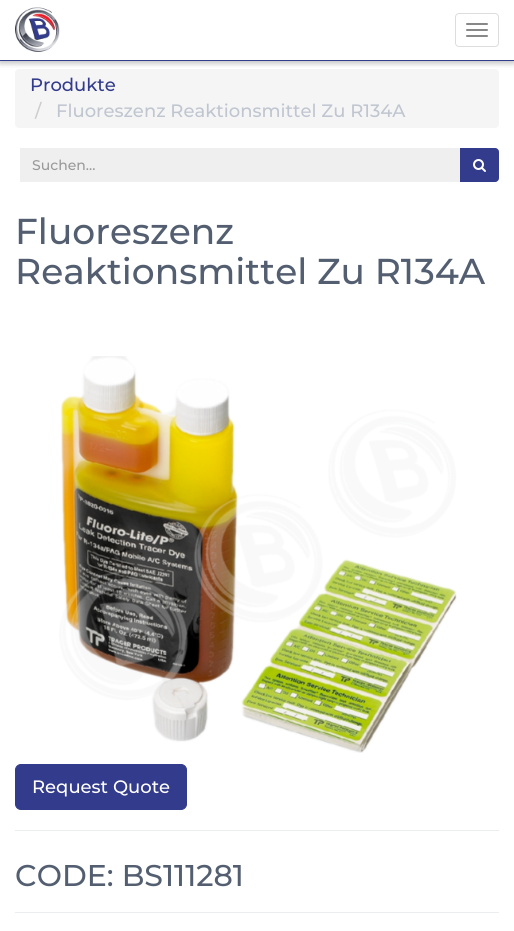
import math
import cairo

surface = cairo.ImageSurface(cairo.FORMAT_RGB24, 514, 931)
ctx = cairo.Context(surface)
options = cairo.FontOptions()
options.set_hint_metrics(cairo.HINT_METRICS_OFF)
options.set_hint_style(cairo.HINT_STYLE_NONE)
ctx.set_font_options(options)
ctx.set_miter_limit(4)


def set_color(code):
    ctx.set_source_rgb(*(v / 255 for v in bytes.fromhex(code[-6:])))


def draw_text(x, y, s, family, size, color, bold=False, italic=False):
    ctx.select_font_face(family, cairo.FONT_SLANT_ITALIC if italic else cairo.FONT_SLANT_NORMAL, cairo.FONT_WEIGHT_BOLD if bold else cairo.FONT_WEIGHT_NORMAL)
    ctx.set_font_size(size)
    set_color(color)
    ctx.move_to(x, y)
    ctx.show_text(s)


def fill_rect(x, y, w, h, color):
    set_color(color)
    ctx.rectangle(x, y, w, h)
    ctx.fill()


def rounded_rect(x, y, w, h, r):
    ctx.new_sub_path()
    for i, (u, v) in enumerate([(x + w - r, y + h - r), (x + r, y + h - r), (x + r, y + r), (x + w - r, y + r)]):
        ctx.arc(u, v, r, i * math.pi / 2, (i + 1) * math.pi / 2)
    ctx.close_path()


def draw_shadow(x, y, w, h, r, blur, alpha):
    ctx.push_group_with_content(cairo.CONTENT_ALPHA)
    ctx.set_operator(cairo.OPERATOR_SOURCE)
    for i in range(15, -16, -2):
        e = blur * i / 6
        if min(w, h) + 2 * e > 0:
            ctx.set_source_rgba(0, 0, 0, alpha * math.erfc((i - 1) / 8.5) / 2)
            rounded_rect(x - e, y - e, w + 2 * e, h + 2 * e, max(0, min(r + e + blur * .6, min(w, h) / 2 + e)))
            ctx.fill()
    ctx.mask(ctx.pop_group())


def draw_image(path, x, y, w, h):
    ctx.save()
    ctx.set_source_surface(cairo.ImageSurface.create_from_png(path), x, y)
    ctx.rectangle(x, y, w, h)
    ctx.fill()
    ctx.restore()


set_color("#ffffff")
ctx.paint()
set_color("#f5f5f5")
rounded_rect(15, 69, 484, 59, 4)
ctx.fill()
ctx.save()
ctx.rectangle(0, 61, 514, 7)
ctx.clip()
set_color("#000000")
draw_shadow(0, 2, 514, 61, 0, 5, 0.12)
ctx.restore()
ctx.save()
ctx.rectangle(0, 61, 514, 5)
ctx.clip()
set_color("#000000")
draw_shadow(0, 2, 514, 61, 0, 2.5, 0.16)
ctx.restore()
fill_rect(0, 60, 514, 1, "#323b8c")
draw_image("assets/img1.png", 15, 7, 45, 45)
rounded_rect(455.5, 13.5, 43, 33, 3.5)
set_color("#dddddd")
ctx.set_line_width(1)
ctx.stroke()
set_color("#888888")
rounded_rect(466, 23, 22, 2, 1)
ctx.fill()
rounded_rect(466, 29, 22, 2, 1)
ctx.fill()
rounded_rect(466, 35, 22, 2, 1)
ctx.fill()
draw_text(30, 91, "Produkte", "Montserrat Medium", 18, "#323b8c")
draw_text(35, 117, "/", "Montserrat Medium", 18, "#cccccc")
draw_text(56, 117, "Fluoreszenz Reaktionsmittel Zu R134A", "Montserrat Medium", 18, "#c0c6d0")
fill_rect(20, 148, 476, 34, "#efefef")
draw_text(32, 170, "Suchen...", "Montserrat Medium", 14, "#999999")
set_color("#323b8c")
ctx.new_path()
ctx.move_to(460.5, 148.5)
ctx.line_to(495, 148.5)
ctx.curve_to(497, 148.5, 498.5, 150, 498.5, 152)
ctx.line_to(498.5, 178)
ctx.curve_to(498.5, 180, 497, 181.5, 495, 181.5)
ctx.line_to(460.5, 181.5)
ctx.close_path()
ctx.fill_preserve()
ctx.stroke()
draw_image("assets/img2.png", 473, 159, 13, 13)
draw_text(15, 244, "Fluoreszenz", "Montserrat Medium", 36, "#535f70")
draw_text(15, 284, "Reaktionsmittel Zu R134A", "Montserrat Medium", 36, "#535f70")
draw_image("assets/img3.png", 59, 356, 398, 397)
set_color("#323b8c")
rounded_rect(15.5, 764.5, 171, 45, 5.5)
ctx.fill_preserve()
ctx.stroke()
draw_text(32, 793, "Request Quote", "Montserrat Medium", 18, "#ffffff")
fill_rect(15, 830, 484, 1, "#ebeef1")
draw_text(15, 886, "CODE: BS111281", "Montserrat Medium", 30, "#535f70")
fill_rect(15, 912, 484, 1, "#ebeef1")
surface.write_to_png("output.png")
